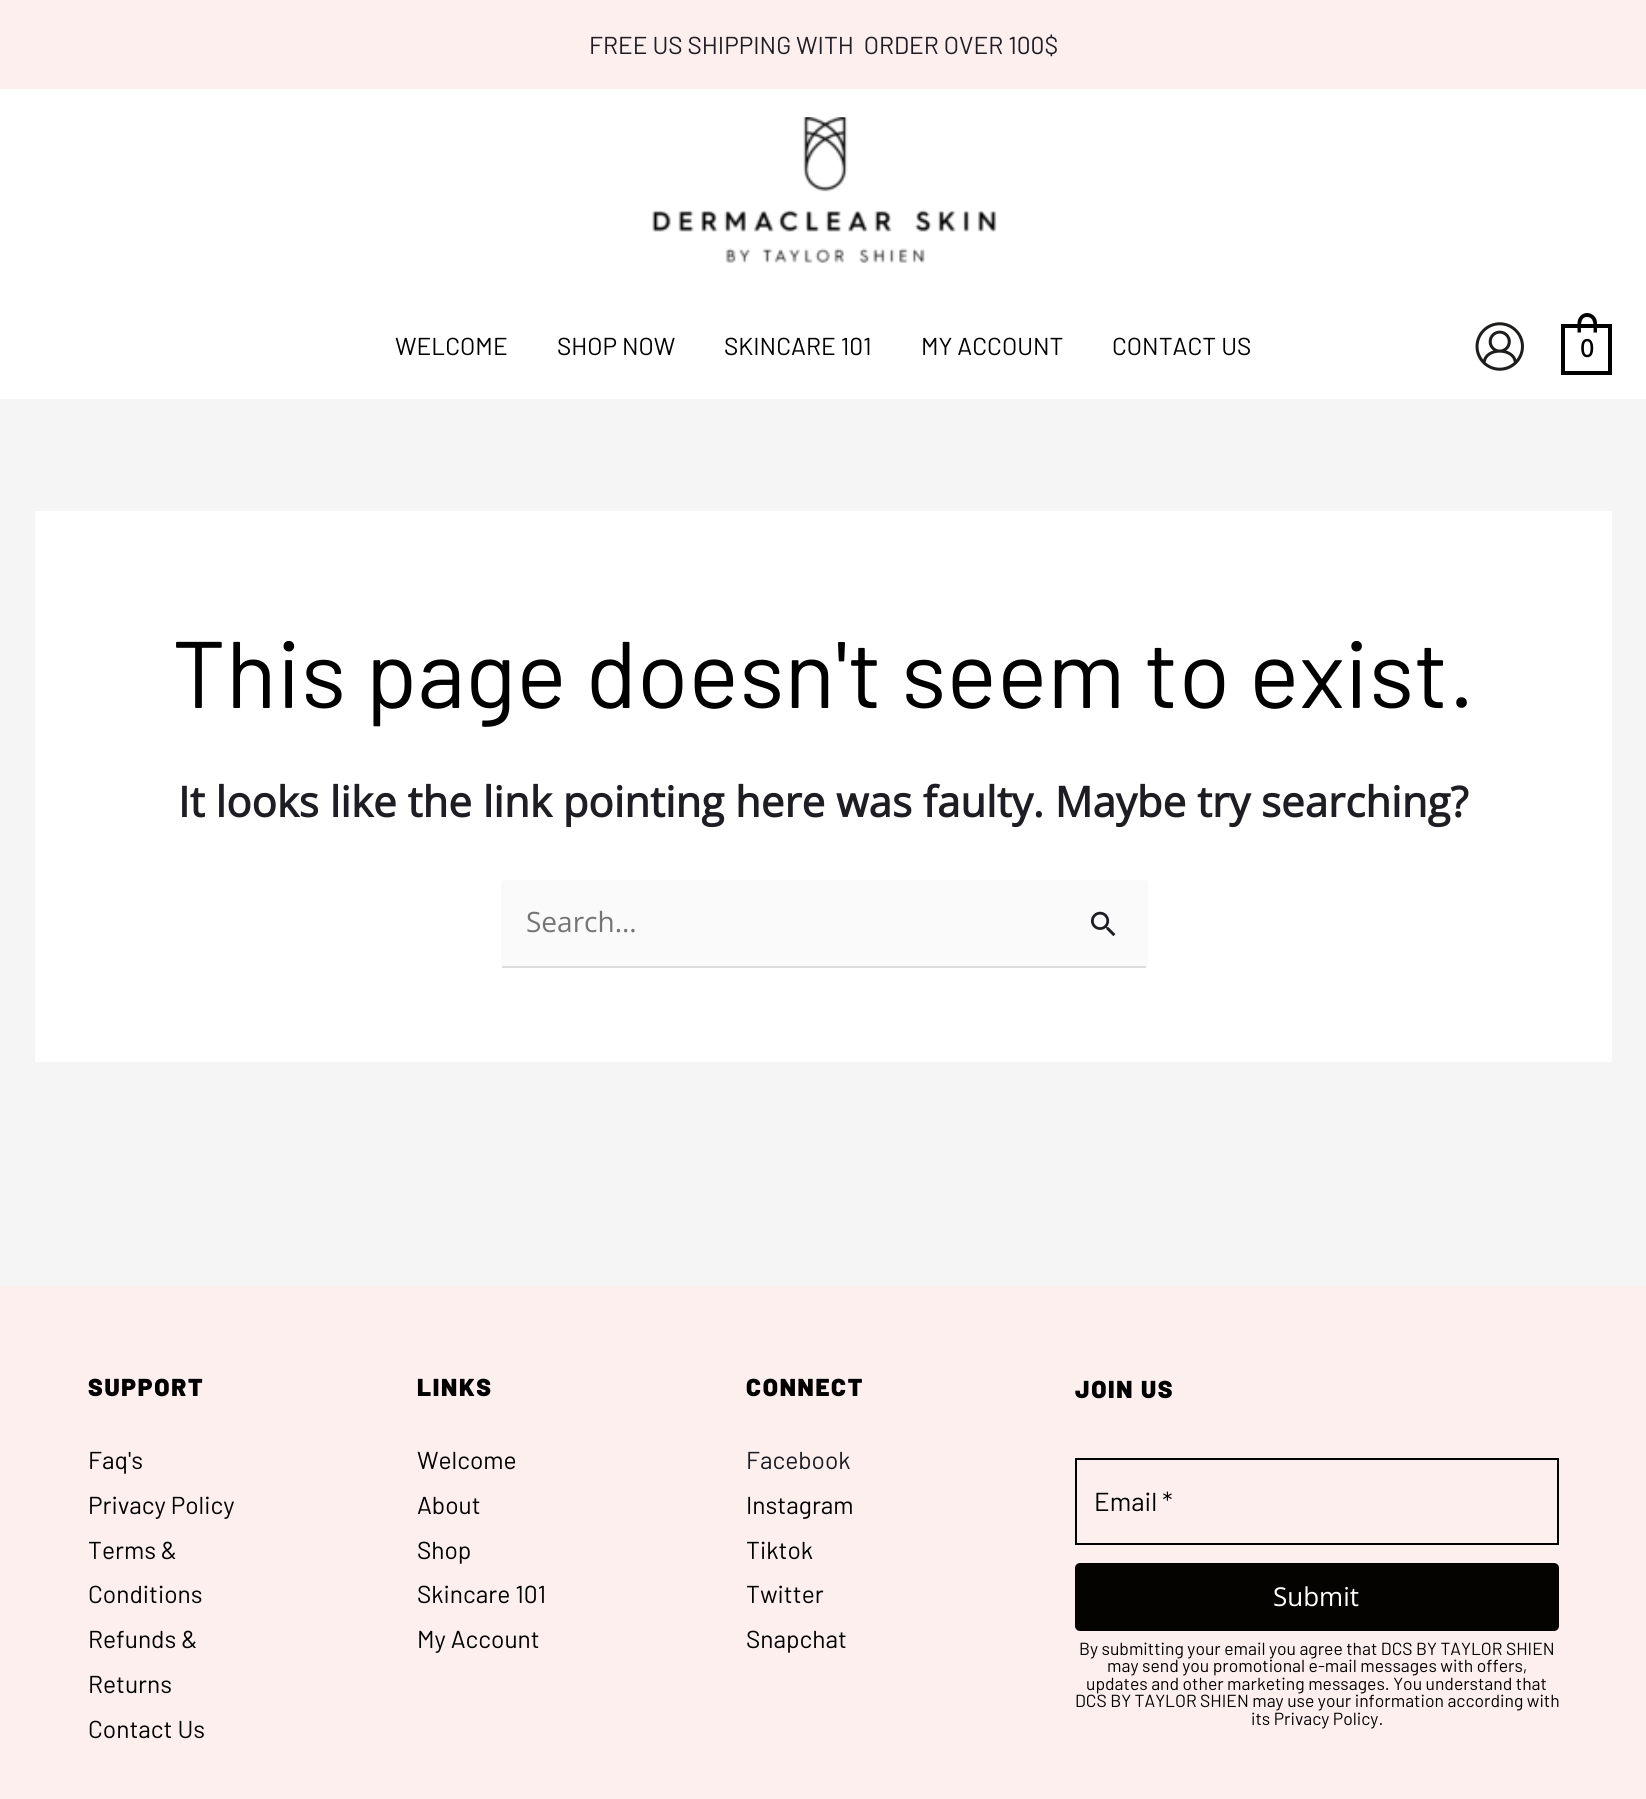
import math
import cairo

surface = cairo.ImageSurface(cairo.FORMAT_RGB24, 1646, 1799)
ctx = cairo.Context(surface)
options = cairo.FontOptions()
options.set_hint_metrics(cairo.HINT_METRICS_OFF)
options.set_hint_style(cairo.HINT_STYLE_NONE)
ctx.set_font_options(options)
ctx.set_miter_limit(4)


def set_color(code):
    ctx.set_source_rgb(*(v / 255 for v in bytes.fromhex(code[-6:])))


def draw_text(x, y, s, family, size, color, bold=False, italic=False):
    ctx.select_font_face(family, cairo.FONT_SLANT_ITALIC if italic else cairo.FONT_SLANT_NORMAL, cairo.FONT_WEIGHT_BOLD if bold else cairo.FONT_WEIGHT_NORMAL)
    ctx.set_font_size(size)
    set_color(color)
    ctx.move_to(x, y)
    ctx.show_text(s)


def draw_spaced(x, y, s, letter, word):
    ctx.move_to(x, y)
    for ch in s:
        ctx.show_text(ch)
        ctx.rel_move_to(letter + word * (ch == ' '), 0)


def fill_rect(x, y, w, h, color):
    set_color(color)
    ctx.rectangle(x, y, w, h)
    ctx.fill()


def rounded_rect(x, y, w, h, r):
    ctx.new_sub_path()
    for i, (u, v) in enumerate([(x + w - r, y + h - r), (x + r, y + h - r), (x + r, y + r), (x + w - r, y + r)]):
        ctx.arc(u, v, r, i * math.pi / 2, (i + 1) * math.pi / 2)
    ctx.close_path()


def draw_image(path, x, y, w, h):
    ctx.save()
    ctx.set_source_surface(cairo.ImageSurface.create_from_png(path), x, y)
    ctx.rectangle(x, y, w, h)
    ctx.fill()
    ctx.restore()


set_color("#f5f5f5")
ctx.paint()
fill_rect(0, 0, 1646, 89, "#feefef")
draw_text(589, 54, "FREE US SHIPPING WITH  ORDER OVER 100$", "Barlow", 24.5, "#1d1d23")
fill_rect(0, 89, 1646, 310, "#ffffff")
draw_image("assets/img1.png", 652, 117, 345, 146)
draw_text(395, 355, "WELCOME", "Barlow", 24.5, "#000000")
draw_text(557, 355, "SHOP NOW", "Barlow", 24.5, "#000000")
draw_text(724, 355, "SKINCARE 101", "Barlow", 24.5, "#000000")
draw_text(921, 355, "MY ACCOUNT", "Barlow", 24.5, "#000000")
draw_text(1112, 355, "CONTACT US", "Barlow", 24.5, "#000000")
draw_image("assets/img2.png", 1475, 322, 49, 49)
ctx.rectangle(1563, 326, 47, 47)
ctx.set_line_width(4)
ctx.stroke()
ctx.set_fill_rule(cairo.FILL_RULE_EVEN_ODD)
ctx.new_path()
ctx.move_to(1587, 313)
ctx.curve_to(1592.5, 313, 1597, 317.5, 1597, 323)
ctx.line_to(1597, 332.5)
ctx.line_to(1577.5, 332.5)
ctx.line_to(1577.5, 323)
ctx.curve_to(1577.5, 317.5, 1582, 313, 1587, 313)
ctx.close_path()
ctx.move_to(1587, 317)
ctx.curve_to(1595, 317, 1593.5, 327.5, 1593.5, 332.5)
ctx.line_to(1581, 332.5)
ctx.curve_to(1581, 327.5, 1579.5, 317, 1587, 317)
ctx.close_path()
ctx.fill()
draw_text(1580, 357, "0", "Open Sans", 24, "#000000", bold=True)
fill_rect(35, 511, 1577, 551, "#ffffff")
draw_text(172, 708, "This page doesn't seem to exist.", "Barlow", 94.5, "#000000")
draw_text(178, 817, "It looks like the link pointing here was faulty. Maybe try searching?", "Open Sans", 42, "#1d1d23", bold=True)
set_color("#fafafa")
rounded_rect(501, 880, 647, 88, 4)
ctx.fill()
fill_rect(502, 966, 644, 2, "#dddddd")
draw_text(526, 932, "Search...", "Open Sans", 28, "#757575")
draw_image("assets/img3.png", 1091, 911, 25, 26)
fill_rect(0, 1286, 1646, 513, "#feefef")
ctx.select_font_face("Barlow Black")
ctx.set_font_size(24.5)
set_color("#000000")
draw_spaced(88, 1396, "SUPPORT", 1.75, 0)
draw_text(88, 1469, "Faq's", "Barlow", 24.5, "#000000")
draw_text(88, 1514, "Privacy Policy", "Barlow", 24.5, "#000000")
draw_text(88, 1559, "Terms &", "Barlow", 24.5, "#000000")
draw_text(88, 1603, "Conditions", "Barlow", 24.5, "#000000")
draw_text(88, 1648, "Refunds &", "Barlow", 24.5, "#000000")
draw_text(88, 1693, "Returns", "Barlow", 24.5, "#000000")
draw_text(88, 1738, "Contact Us", "Barlow", 24.5, "#000000")
ctx.select_font_face("Barlow Black")
draw_spaced(417, 1396, "LINKS", 1.75, 0)
draw_text(417, 1469, "Welcome", "Barlow", 24.5, "#000000")
draw_text(417, 1514, "About", "Barlow", 24.5, "#000000")
draw_text(417, 1559, "Shop", "Barlow", 24.5, "#000000")
draw_text(417, 1603, "Skincare 101", "Barlow", 24.5, "#000000")
draw_text(417, 1648, "My Account", "Barlow", 24.5, "#000000")
ctx.select_font_face("Barlow Black")
draw_spaced(746, 1396, "CONNECT", 1.75, 0)
draw_text(746, 1469, "Facebook", "Barlow", 24.5, "#1d1d23")
draw_text(746, 1514, "Instagram", "Barlow", 24.5, "#000000")
draw_text(746, 1559, "Tiktok", "Barlow", 24.5, "#000000")
draw_text(746, 1603, "Twitter", "Barlow", 24.5, "#000000")
draw_text(746, 1648, "Snapchat", "Barlow", 24.5, "#000000")
ctx.select_font_face("Barlow Black")
draw_spaced(1075, 1398, "JOIN US", 1.75, 0)
ctx.rectangle(1076, 1459, 482, 85)
ctx.set_line_width(2)
ctx.stroke()
draw_text(1094, 1511, "Email *", "Barlow", 26, "#000000")
set_color("#050300")
rounded_rect(1075, 1563, 484, 68, 5)
ctx.fill()
draw_text(1273, 1606, "Submit", "Open Sans", 26, "#ffffff")
draw_text(1079, 1655, "By submitting your email you agree that DCS BY TAYLOR SHIEN", "Barlow", 17.5, "#000000")
draw_text(1107, 1672, "may send you promotional e-mail messages with offers,", "Barlow", 17.5, "#000000")
draw_text(1086, 1690, "updates and other marketing messages. You understand that", "Barlow", 17.5, "#000000")
draw_text(1075, 1707, "DCS BY TAYLOR SHIEN may use your information according with", "Barlow", 17.5, "#000000")
draw_text(1251, 1725, "its Privacy Policy.", "Barlow", 17.5, "#000000")
surface.write_to_png("output.png")
